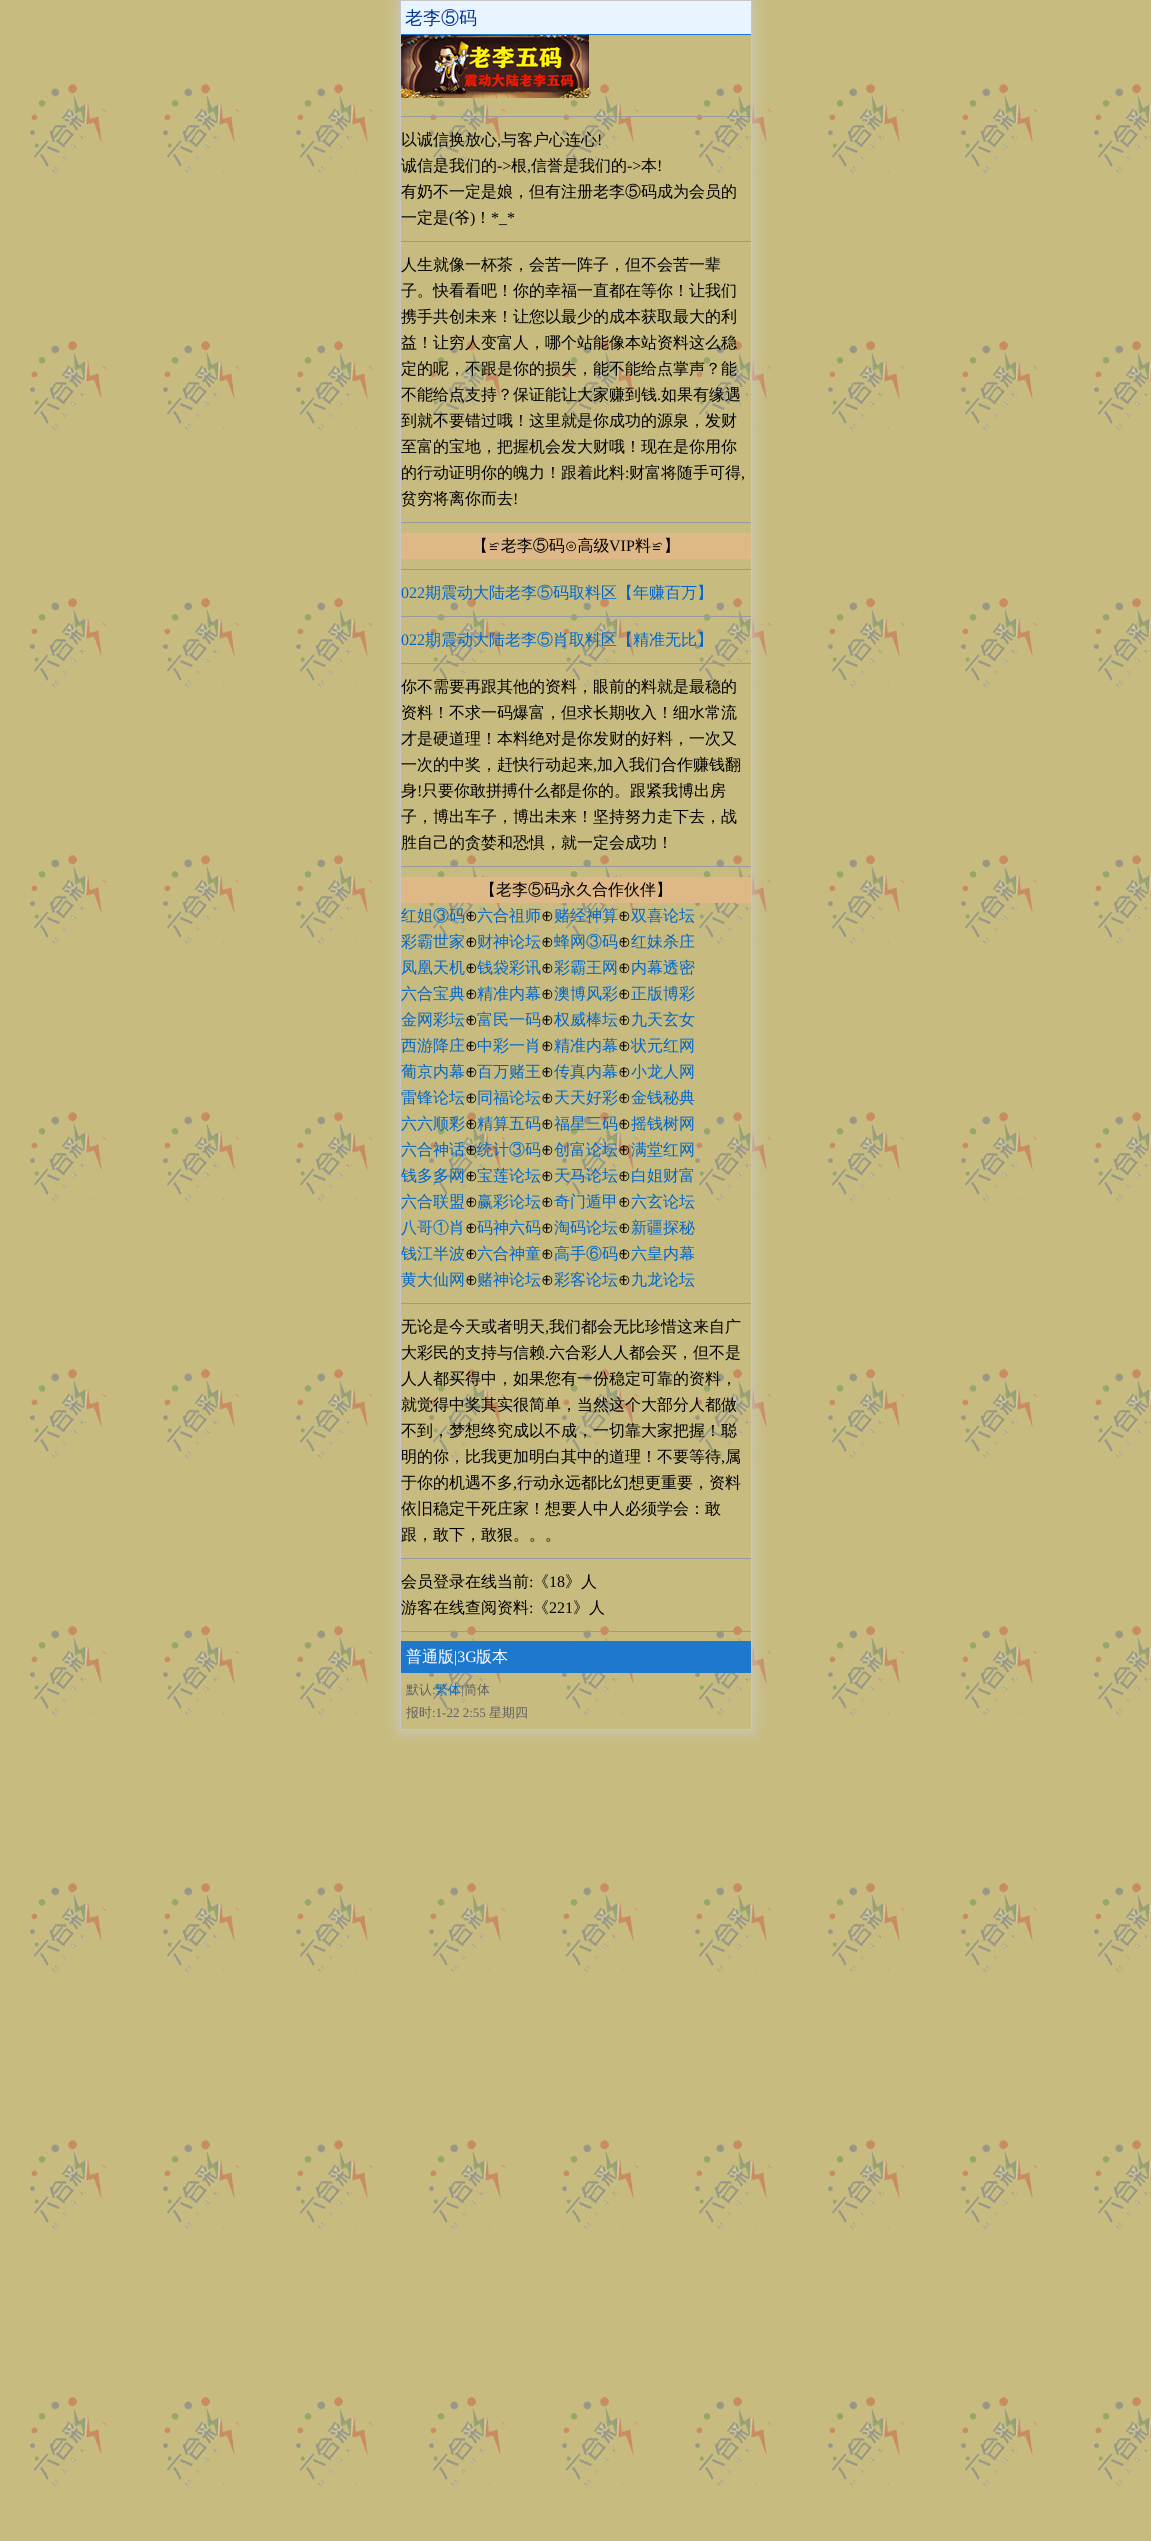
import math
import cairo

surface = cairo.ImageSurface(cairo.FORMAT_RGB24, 1151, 2541)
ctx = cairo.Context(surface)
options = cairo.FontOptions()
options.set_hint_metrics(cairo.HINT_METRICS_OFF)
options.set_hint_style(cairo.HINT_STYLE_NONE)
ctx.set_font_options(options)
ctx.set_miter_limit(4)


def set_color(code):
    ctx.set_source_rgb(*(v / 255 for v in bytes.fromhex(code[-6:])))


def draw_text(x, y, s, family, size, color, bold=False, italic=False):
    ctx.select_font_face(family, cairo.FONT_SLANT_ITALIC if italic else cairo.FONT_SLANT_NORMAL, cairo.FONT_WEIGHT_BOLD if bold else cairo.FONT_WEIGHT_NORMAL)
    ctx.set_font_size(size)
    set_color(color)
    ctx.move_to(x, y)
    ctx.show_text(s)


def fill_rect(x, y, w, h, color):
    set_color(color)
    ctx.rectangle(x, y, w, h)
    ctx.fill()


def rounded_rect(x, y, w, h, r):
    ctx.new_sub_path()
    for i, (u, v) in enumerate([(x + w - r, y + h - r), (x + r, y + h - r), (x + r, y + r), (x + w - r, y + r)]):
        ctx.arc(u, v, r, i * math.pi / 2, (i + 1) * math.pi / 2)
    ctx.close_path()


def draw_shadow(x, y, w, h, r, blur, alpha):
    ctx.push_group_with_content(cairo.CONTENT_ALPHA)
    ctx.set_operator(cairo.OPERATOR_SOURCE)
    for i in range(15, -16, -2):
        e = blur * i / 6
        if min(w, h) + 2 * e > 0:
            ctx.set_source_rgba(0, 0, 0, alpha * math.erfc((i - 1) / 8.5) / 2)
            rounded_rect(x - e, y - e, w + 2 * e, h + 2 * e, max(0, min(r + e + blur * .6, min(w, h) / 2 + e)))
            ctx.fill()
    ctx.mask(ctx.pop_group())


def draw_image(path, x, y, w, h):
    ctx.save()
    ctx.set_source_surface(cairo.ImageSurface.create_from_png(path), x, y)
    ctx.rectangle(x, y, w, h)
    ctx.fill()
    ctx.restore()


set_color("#ffffff")
ctx.paint()
draw_image("assets/img1.png", 0, 0, 1151, 2541)
ctx.save()
ctx.set_fill_rule(cairo.FILL_RULE_EVEN_ODD)
ctx.new_path()
ctx.move_to(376, 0)
ctx.line_to(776, 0)
ctx.line_to(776, 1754)
ctx.line_to(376, 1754)
ctx.close_path()
ctx.move_to(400, 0)
ctx.line_to(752, 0)
ctx.line_to(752, 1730)
ctx.line_to(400, 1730)
ctx.close_path()
ctx.clip()
set_color("#cccccc")
draw_shadow(400, 0, 352, 1730, 0, 7.5, 1)
ctx.restore()
ctx.rectangle(400.5, 0.5, 351, 1729)
set_color("#c6c6c6")
ctx.set_line_width(1)
ctx.stroke()
fill_rect(401, 1, 350, 33, "#e8f4ff")
fill_rect(401, 34, 350, 1, "#1e79ce")
draw_text(405, 24, "老李⑤码", "WenQuanYi Zen Hei Medium", 18, "#003399")
draw_image("assets/img2.png", 401, 35, 188, 63)
fill_rect(401, 116, 350, 1, "#999999")
draw_text(401, 145, "以诚信换放心", "WenQuanYi Zen Hei Medium", 16, "#000000")
draw_text(497, 145, ",", "Liberation Serif", 16, "#000000")
draw_text(501, 145, "与客户心连心", "WenQuanYi Zen Hei Medium", 16, "#000000")
draw_text(597, 145, "!", "Liberation Serif", 16, "#000000")
draw_text(401, 171, "诚信是我们的", "WenQuanYi Zen Hei Medium", 16, "#000000")
draw_text(497, 171, "->", "Liberation Serif", 16, "#000000")
draw_text(511, 171, "根", "WenQuanYi Zen Hei Medium", 16, "#000000")
draw_text(531, 171, "信誉是我们的", "WenQuanYi Zen Hei Medium", 16, "#000000")
draw_text(627, 171, "->", "Liberation Serif", 16, "#000000")
draw_text(641, 171, "本", "WenQuanYi Zen Hei Medium", 16, "#000000")
draw_text(657, 171, "!", "Liberation Serif", 16, "#000000")
draw_text(527, 171, ",", "Liberation Serif", 16, "#000000")
draw_text(401, 197, "有奶不一定是娘，但有注册老李⑤码成为会员的", "WenQuanYi Zen Hei Medium", 16, "#000000")
draw_text(401, 223, "一定是", "WenQuanYi Zen Hei Medium", 16, "#000000")
draw_text(449, 223, "(", "Liberation Serif", 16, "#000000")
draw_text(454, 223, "爷", "WenQuanYi Zen Hei Medium", 16, "#000000")
draw_text(470, 223, ")", "Liberation Serif", 16, "#000000")
draw_text(475, 223, "！", "WenQuanYi Zen Hei Medium", 16, "#000000")
draw_text(491, 223, "*_*", "Liberation Serif", 16, "#000000")
fill_rect(401, 241, 350, 1, "#999999")
draw_text(401, 270, "人生就像一杯茶，会苦一阵子，但不会苦一辈", "WenQuanYi Zen Hei Medium", 16, "#000000")
draw_text(401, 296, "子。快看看吧！你的幸福一直都在等你！让我们", "WenQuanYi Zen Hei Medium", 16, "#000000")
draw_text(401, 322, "携手共创未来！让您以最少的成本获取最大的利", "WenQuanYi Zen Hei Medium", 16, "#000000")
draw_text(401, 348, "益！让穷人变富人，哪个站能像本站资料这么稳", "WenQuanYi Zen Hei Medium", 16, "#000000")
draw_text(401, 374, "定的呢，不跟是你的损失，能不能给点掌声？能", "WenQuanYi Zen Hei Medium", 16, "#000000")
draw_text(401, 400, "不能给点支持？保证能让大家赚到钱", "WenQuanYi Zen Hei Medium", 16, "#000000")
draw_text(657, 400, ".", "Liberation Serif", 16, "#000000")
draw_text(661, 400, "如果有缘遇", "WenQuanYi Zen Hei Medium", 16, "#000000")
draw_text(401, 426, "到就不要错过哦！这里就是你成功的源泉，发财", "WenQuanYi Zen Hei Medium", 16, "#000000")
draw_text(401, 452, "至富的宝地，把握机会发大财哦！现在是你用你", "WenQuanYi Zen Hei Medium", 16, "#000000")
draw_text(401, 478, "的行动证明你的魄力！跟着此料", "WenQuanYi Zen Hei Medium", 16, "#000000")
draw_text(625, 478, ":", "Liberation Serif", 16, "#000000")
draw_text(629, 478, "财富将随手可得", "WenQuanYi Zen Hei Medium", 16, "#000000")
draw_text(741, 478, ",", "Liberation Serif", 16, "#000000")
draw_text(401, 504, "贫穷将离你而去", "WenQuanYi Zen Hei Medium", 16, "#000000")
draw_text(513, 504, "!", "Liberation Serif", 16, "#000000")
fill_rect(401, 522, 350, 1, "#999999")
fill_rect(401, 533, 350, 26, "#deb887")
draw_text(472, 551, "【≌老李⑤码⊙高级", "WenQuanYi Zen Hei Medium", 16, "#000000")
draw_text(609, 551, "VIP", "Liberation Serif", 16, "#000000")
draw_text(635, 551, "料≌】", "WenQuanYi Zen Hei Medium", 16, "#000000")
fill_rect(401, 569, 350, 1, "#999999")
draw_text(401, 598, "022", "Liberation Serif", 16, "#0066cc")
draw_text(425, 598, "期震动大陆老李⑤码取料区【年赚百万】", "WenQuanYi Zen Hei Medium", 16, "#0066cc")
fill_rect(401, 616, 350, 1, "#999999")
draw_text(401, 645, "022", "Liberation Serif", 16, "#0066cc")
draw_text(425, 645, "期震动大陆老李⑤肖取料区【精准无比】", "WenQuanYi Zen Hei Medium", 16, "#0066cc")
fill_rect(401, 663, 350, 1, "#999999")
draw_text(401, 692, "你不需要再跟其他的资料，眼前的料就是最稳的", "WenQuanYi Zen Hei Medium", 16, "#000000")
draw_text(401, 718, "资料！不求一码爆富，但求长期收入！细水常流", "WenQuanYi Zen Hei Medium", 16, "#000000")
draw_text(401, 744, "才是硬道理！本料绝对是你发财的好料，一次又", "WenQuanYi Zen Hei Medium", 16, "#000000")
draw_text(401, 770, "一次的中奖，赶快行动起来", "WenQuanYi Zen Hei Medium", 16, "#000000")
draw_text(593, 770, ",", "Liberation Serif", 16, "#000000")
draw_text(597, 770, "加入我们合作赚钱翻", "WenQuanYi Zen Hei Medium", 16, "#000000")
draw_text(401, 796, "身", "WenQuanYi Zen Hei Medium", 16, "#000000")
draw_text(417, 796, "!", "Liberation Serif", 16, "#000000")
draw_text(422, 796, "只要你敢拼搏什么都是你的。跟紧我博出房", "WenQuanYi Zen Hei Medium", 16, "#000000")
draw_text(401, 822, "子，博出车子，博出未来！坚持努力走下去，战", "WenQuanYi Zen Hei Medium", 16, "#000000")
draw_text(401, 848, "胜自己的贪婪和恐惧，就一定会成功！", "WenQuanYi Zen Hei Medium", 16, "#000000")
fill_rect(401, 866, 350, 1, "#999999")
fill_rect(401, 877, 350, 26, "#deb887")
draw_text(480, 895, "【老李⑤码永久合作伙伴】", "WenQuanYi Zen Hei Medium", 16, "#000000")
draw_text(401, 921, "红姐③码", "WenQuanYi Zen Hei Medium", 16, "#0066cc")
draw_text(465, 921, "⊕", "WenQuanYi Zen Hei Medium", 16, "#000000")
draw_text(477, 921, "六合祖师", "WenQuanYi Zen Hei Medium", 16, "#0066cc")
draw_text(541, 921, "⊕", "WenQuanYi Zen Hei Medium", 16, "#000000")
draw_text(554, 921, "赌经神算", "WenQuanYi Zen Hei Medium", 16, "#0066cc")
draw_text(618, 921, "⊕", "WenQuanYi Zen Hei Medium", 16, "#000000")
draw_text(631, 921, "双喜论坛", "WenQuanYi Zen Hei Medium", 16, "#0066cc")
draw_text(401, 947, "彩霸世家", "WenQuanYi Zen Hei Medium", 16, "#0066cc")
draw_text(465, 947, "⊕", "WenQuanYi Zen Hei Medium", 16, "#000000")
draw_text(477, 947, "财神论坛", "WenQuanYi Zen Hei Medium", 16, "#0066cc")
draw_text(541, 947, "⊕", "WenQuanYi Zen Hei Medium", 16, "#000000")
draw_text(554, 947, "蜂网③码", "WenQuanYi Zen Hei Medium", 16, "#0066cc")
draw_text(618, 947, "⊕", "WenQuanYi Zen Hei Medium", 16, "#000000")
draw_text(631, 947, "红妹杀庄", "WenQuanYi Zen Hei Medium", 16, "#0066cc")
draw_text(401, 973, "凤凰天机", "WenQuanYi Zen Hei Medium", 16, "#0066cc")
draw_text(465, 973, "⊕", "WenQuanYi Zen Hei Medium", 16, "#000000")
draw_text(477, 973, "钱袋彩讯", "WenQuanYi Zen Hei Medium", 16, "#0066cc")
draw_text(541, 973, "⊕", "WenQuanYi Zen Hei Medium", 16, "#000000")
draw_text(554, 973, "彩霸王网", "WenQuanYi Zen Hei Medium", 16, "#0066cc")
draw_text(618, 973, "⊕", "WenQuanYi Zen Hei Medium", 16, "#000000")
draw_text(631, 973, "内幕透密", "WenQuanYi Zen Hei Medium", 16, "#0066cc")
draw_text(401, 999, "六合宝典", "WenQuanYi Zen Hei Medium", 16, "#0066cc")
draw_text(465, 999, "⊕", "WenQuanYi Zen Hei Medium", 16, "#000000")
draw_text(477, 999, "精准内幕", "WenQuanYi Zen Hei Medium", 16, "#0066cc")
draw_text(541, 999, "⊕", "WenQuanYi Zen Hei Medium", 16, "#000000")
draw_text(554, 999, "澳博风彩", "WenQuanYi Zen Hei Medium", 16, "#0066cc")
draw_text(618, 999, "⊕", "WenQuanYi Zen Hei Medium", 16, "#000000")
draw_text(631, 999, "正版博彩", "WenQuanYi Zen Hei Medium", 16, "#0066cc")
draw_text(401, 1025, "金网彩坛", "WenQuanYi Zen Hei Medium", 16, "#0066cc")
draw_text(465, 1025, "⊕", "WenQuanYi Zen Hei Medium", 16, "#000000")
draw_text(477, 1025, "富民一码", "WenQuanYi Zen Hei Medium", 16, "#0066cc")
draw_text(541, 1025, "⊕", "WenQuanYi Zen Hei Medium", 16, "#000000")
draw_text(554, 1025, "权威棒坛", "WenQuanYi Zen Hei Medium", 16, "#0066cc")
draw_text(618, 1025, "⊕", "WenQuanYi Zen Hei Medium", 16, "#000000")
draw_text(631, 1025, "九天玄女", "WenQuanYi Zen Hei Medium", 16, "#0066cc")
draw_text(401, 1051, "西游降庄", "WenQuanYi Zen Hei Medium", 16, "#0066cc")
draw_text(465, 1051, "⊕", "WenQuanYi Zen Hei Medium", 16, "#000000")
draw_text(477, 1051, "中彩一肖", "WenQuanYi Zen Hei Medium", 16, "#0066cc")
draw_text(541, 1051, "⊕", "WenQuanYi Zen Hei Medium", 16, "#000000")
draw_text(554, 1051, "精准内幕", "WenQuanYi Zen Hei Medium", 16, "#0066cc")
draw_text(618, 1051, "⊕", "WenQuanYi Zen Hei Medium", 16, "#000000")
draw_text(631, 1051, "状元红网", "WenQuanYi Zen Hei Medium", 16, "#0066cc")
draw_text(401, 1077, "葡京内幕", "WenQuanYi Zen Hei Medium", 16, "#0066cc")
draw_text(465, 1077, "⊕", "WenQuanYi Zen Hei Medium", 16, "#000000")
draw_text(477, 1077, "百万赌王", "WenQuanYi Zen Hei Medium", 16, "#0066cc")
draw_text(541, 1077, "⊕", "WenQuanYi Zen Hei Medium", 16, "#000000")
draw_text(554, 1077, "传真内幕", "WenQuanYi Zen Hei Medium", 16, "#0066cc")
draw_text(618, 1077, "⊕", "WenQuanYi Zen Hei Medium", 16, "#000000")
draw_text(631, 1077, "小龙人网", "WenQuanYi Zen Hei Medium", 16, "#0066cc")
draw_text(401, 1103, "雷锋论坛", "WenQuanYi Zen Hei Medium", 16, "#0066cc")
draw_text(465, 1103, "⊕", "WenQuanYi Zen Hei Medium", 16, "#000000")
draw_text(477, 1103, "同福论坛", "WenQuanYi Zen Hei Medium", 16, "#0066cc")
draw_text(541, 1103, "⊕", "WenQuanYi Zen Hei Medium", 16, "#000000")
draw_text(554, 1103, "天天好彩", "WenQuanYi Zen Hei Medium", 16, "#0066cc")
draw_text(618, 1103, "⊕", "WenQuanYi Zen Hei Medium", 16, "#000000")
draw_text(631, 1103, "金钱秘典", "WenQuanYi Zen Hei Medium", 16, "#0066cc")
draw_text(401, 1129, "六六顺彩", "WenQuanYi Zen Hei Medium", 16, "#0066cc")
draw_text(465, 1129, "⊕", "WenQuanYi Zen Hei Medium", 16, "#000000")
draw_text(477, 1129, "精算五码", "WenQuanYi Zen Hei Medium", 16, "#0066cc")
draw_text(541, 1129, "⊕", "WenQuanYi Zen Hei Medium", 16, "#000000")
draw_text(554, 1129, "福星三码", "WenQuanYi Zen Hei Medium", 16, "#0066cc")
draw_text(618, 1129, "⊕", "WenQuanYi Zen Hei Medium", 16, "#000000")
draw_text(631, 1129, "摇钱树网", "WenQuanYi Zen Hei Medium", 16, "#0066cc")
draw_text(401, 1155, "六合神话", "WenQuanYi Zen Hei Medium", 16, "#0066cc")
draw_text(465, 1155, "⊕", "WenQuanYi Zen Hei Medium", 16, "#000000")
draw_text(477, 1155, "统计③码", "WenQuanYi Zen Hei Medium", 16, "#0066cc")
draw_text(541, 1155, "⊕", "WenQuanYi Zen Hei Medium", 16, "#000000")
draw_text(554, 1155, "创富论坛", "WenQuanYi Zen Hei Medium", 16, "#0066cc")
draw_text(618, 1155, "⊕", "WenQuanYi Zen Hei Medium", 16, "#000000")
draw_text(631, 1155, "满堂红网", "WenQuanYi Zen Hei Medium", 16, "#0066cc")
draw_text(401, 1181, "钱多多网", "WenQuanYi Zen Hei Medium", 16, "#0066cc")
draw_text(465, 1181, "⊕", "WenQuanYi Zen Hei Medium", 16, "#000000")
draw_text(477, 1181, "宝莲论坛", "WenQuanYi Zen Hei Medium", 16, "#0066cc")
draw_text(541, 1181, "⊕", "WenQuanYi Zen Hei Medium", 16, "#000000")
draw_text(554, 1181, "天马论坛", "WenQuanYi Zen Hei Medium", 16, "#0066cc")
draw_text(618, 1181, "⊕", "WenQuanYi Zen Hei Medium", 16, "#000000")
draw_text(631, 1181, "白姐财富", "WenQuanYi Zen Hei Medium", 16, "#0066cc")
draw_text(401, 1207, "六合联盟", "WenQuanYi Zen Hei Medium", 16, "#0066cc")
draw_text(465, 1207, "⊕", "WenQuanYi Zen Hei Medium", 16, "#000000")
draw_text(477, 1207, "赢彩论坛", "WenQuanYi Zen Hei Medium", 16, "#0066cc")
draw_text(541, 1207, "⊕", "WenQuanYi Zen Hei Medium", 16, "#000000")
draw_text(554, 1207, "奇门遁甲", "WenQuanYi Zen Hei Medium", 16, "#0066cc")
draw_text(618, 1207, "⊕", "WenQuanYi Zen Hei Medium", 16, "#000000")
draw_text(631, 1207, "六玄论坛", "WenQuanYi Zen Hei Medium", 16, "#0066cc")
draw_text(401, 1233, "八哥①肖", "WenQuanYi Zen Hei Medium", 16, "#0066cc")
draw_text(465, 1233, "⊕", "WenQuanYi Zen Hei Medium", 16, "#000000")
draw_text(477, 1233, "码神六码", "WenQuanYi Zen Hei Medium", 16, "#0066cc")
draw_text(541, 1233, "⊕", "WenQuanYi Zen Hei Medium", 16, "#000000")
draw_text(554, 1233, "淘码论坛", "WenQuanYi Zen Hei Medium", 16, "#0066cc")
draw_text(618, 1233, "⊕", "WenQuanYi Zen Hei Medium", 16, "#000000")
draw_text(631, 1233, "新疆探秘", "WenQuanYi Zen Hei Medium", 16, "#0066cc")
draw_text(401, 1259, "钱江半波", "WenQuanYi Zen Hei Medium", 16, "#0066cc")
draw_text(465, 1259, "⊕", "WenQuanYi Zen Hei Medium", 16, "#000000")
draw_text(477, 1259, "六合神童", "WenQuanYi Zen Hei Medium", 16, "#0066cc")
draw_text(541, 1259, "⊕", "WenQuanYi Zen Hei Medium", 16, "#000000")
draw_text(554, 1259, "高手⑥码", "WenQuanYi Zen Hei Medium", 16, "#0066cc")
draw_text(618, 1259, "⊕", "WenQuanYi Zen Hei Medium", 16, "#000000")
draw_text(631, 1259, "六皇内幕", "WenQuanYi Zen Hei Medium", 16, "#0066cc")
draw_text(401, 1285, "黄大仙网", "WenQuanYi Zen Hei Medium", 16, "#0066cc")
draw_text(465, 1285, "⊕", "WenQuanYi Zen Hei Medium", 16, "#000000")
draw_text(477, 1285, "赌神论坛", "WenQuanYi Zen Hei Medium", 16, "#0066cc")
draw_text(541, 1285, "⊕", "WenQuanYi Zen Hei Medium", 16, "#000000")
draw_text(554, 1285, "彩客论坛", "WenQuanYi Zen Hei Medium", 16, "#0066cc")
draw_text(618, 1285, "⊕", "WenQuanYi Zen Hei Medium", 16, "#000000")
draw_text(631, 1285, "九龙论坛", "WenQuanYi Zen Hei Medium", 16, "#0066cc")
fill_rect(401, 1303, 350, 1, "#999999")
draw_text(401, 1332, "无论是今天或者明天", "WenQuanYi Zen Hei Medium", 16, "#000000")
draw_text(545, 1332, ",", "Liberation Serif", 16, "#000000")
draw_text(549, 1332, "我们都会无比珍惜这来自广", "WenQuanYi Zen Hei Medium", 16, "#000000")
draw_text(401, 1358, "大彩民的支持与信赖", "WenQuanYi Zen Hei Medium", 16, "#000000")
draw_text(545, 1358, ".", "Liberation Serif", 16, "#000000")
draw_text(549, 1358, "六合彩人人都会买，但不是", "WenQuanYi Zen Hei Medium", 16, "#000000")
draw_text(401, 1384, "人人都买得中，如果您有一份稳定可靠的资料，", "WenQuanYi Zen Hei Medium", 16, "#000000")
draw_text(401, 1410, "就觉得中奖其实很简单，当然这个大部分人都做", "WenQuanYi Zen Hei Medium", 16, "#000000")
draw_text(401, 1436, "不到，梦想终究成以不成，一切靠大家把握！聪", "WenQuanYi Zen Hei Medium", 16, "#000000")
draw_text(401, 1462, "明的你，比我更加明白其中的道理！不要等待", "WenQuanYi Zen Hei Medium", 16, "#000000")
draw_text(721, 1462, ",", "Liberation Serif", 16, "#000000")
draw_text(725, 1462, "属", "WenQuanYi Zen Hei Medium", 16, "#000000")
draw_text(401, 1488, "于你的机遇不多", "WenQuanYi Zen Hei Medium", 16, "#000000")
draw_text(513, 1488, ",", "Liberation Serif", 16, "#000000")
draw_text(517, 1488, "行动永远都比幻想更重要，资料", "WenQuanYi Zen Hei Medium", 16, "#000000")
draw_text(401, 1514, "依旧稳定干死庄家！想要人中人必须学会：敢", "WenQuanYi Zen Hei Medium", 16, "#000000")
draw_text(401, 1540, "跟，敢下，敢狠。。。", "WenQuanYi Zen Hei Medium", 16, "#000000")
fill_rect(401, 1558, 350, 1, "#999999")
draw_text(401, 1587, "会员登录在线当前", "WenQuanYi Zen Hei Medium", 16, "#000000")
draw_text(529, 1587, ":", "Liberation Serif", 16, "#000000")
draw_text(533, 1587, "《", "WenQuanYi Zen Hei Medium", 16, "#000000")
draw_text(549, 1587, "18", "Liberation Serif", 16, "#000000")
draw_text(565, 1587, "》人", "WenQuanYi Zen Hei Medium", 16, "#000000")
draw_text(401, 1613, "游客在线查阅资料", "WenQuanYi Zen Hei Medium", 16, "#000000")
draw_text(529, 1613, ":", "Liberation Serif", 16, "#000000")
draw_text(533, 1613, "《", "WenQuanYi Zen Hei Medium", 16, "#000000")
draw_text(549, 1613, "221", "Liberation Serif", 16, "#000000")
draw_text(573, 1613, "》人", "WenQuanYi Zen Hei Medium", 16, "#000000")
fill_rect(401, 1631, 350, 1, "#999999")
fill_rect(401, 1641, 350, 32, "#1e79ce")
draw_text(406, 1662, "普通版", "WenQuanYi Zen Hei Medium", 16, "#ffffff")
draw_text(454, 1662, "|3G", "Liberation Serif", 16, "#ffffff")
draw_text(476, 1662, "版本", "WenQuanYi Zen Hei Medium", 16, "#ffffff")
draw_text(406, 1694, "默认", "WenQuanYi Zen Hei Medium", 13, "#616161")
draw_text(432, 1694, ":", "Liberation Serif", 13, "#616161")
draw_text(435, 1694, "繁体", "WenQuanYi Zen Hei Medium", 13, "#0066cc")
draw_text(461, 1694, "|", "Liberation Serif", 13, "#616161")
draw_text(464, 1694, "简体", "WenQuanYi Zen Hei Medium", 13, "#616161")
draw_text(406, 1717, "报时", "WenQuanYi Zen Hei Medium", 13, "#616161")
draw_text(432, 1717, ":1-22 2:55", "Liberation Serif", 13, "#616161")
draw_text(489, 1717, "星期四", "WenQuanYi Zen Hei Medium", 13, "#616161")
surface.write_to_png("output.png")
